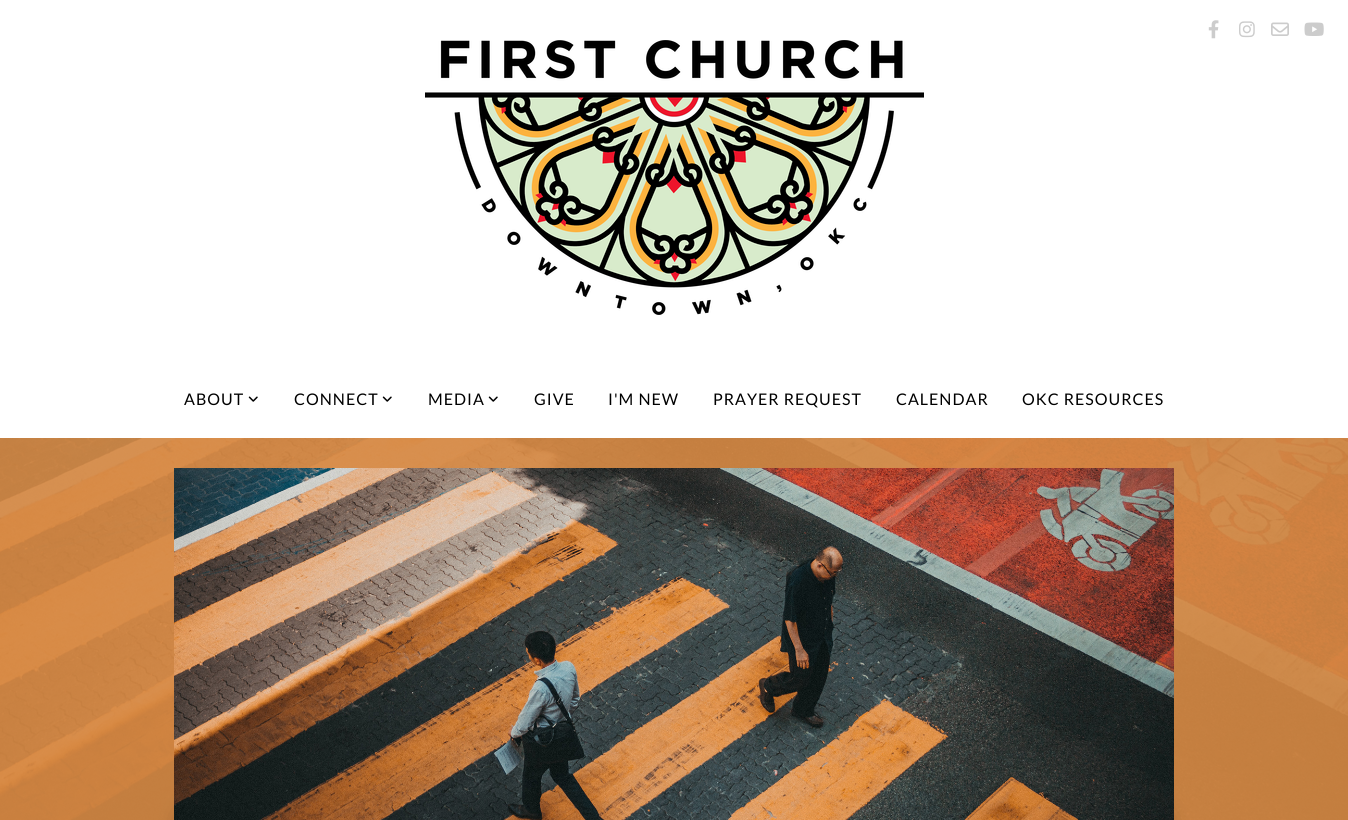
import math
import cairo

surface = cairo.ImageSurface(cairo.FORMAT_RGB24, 1348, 820)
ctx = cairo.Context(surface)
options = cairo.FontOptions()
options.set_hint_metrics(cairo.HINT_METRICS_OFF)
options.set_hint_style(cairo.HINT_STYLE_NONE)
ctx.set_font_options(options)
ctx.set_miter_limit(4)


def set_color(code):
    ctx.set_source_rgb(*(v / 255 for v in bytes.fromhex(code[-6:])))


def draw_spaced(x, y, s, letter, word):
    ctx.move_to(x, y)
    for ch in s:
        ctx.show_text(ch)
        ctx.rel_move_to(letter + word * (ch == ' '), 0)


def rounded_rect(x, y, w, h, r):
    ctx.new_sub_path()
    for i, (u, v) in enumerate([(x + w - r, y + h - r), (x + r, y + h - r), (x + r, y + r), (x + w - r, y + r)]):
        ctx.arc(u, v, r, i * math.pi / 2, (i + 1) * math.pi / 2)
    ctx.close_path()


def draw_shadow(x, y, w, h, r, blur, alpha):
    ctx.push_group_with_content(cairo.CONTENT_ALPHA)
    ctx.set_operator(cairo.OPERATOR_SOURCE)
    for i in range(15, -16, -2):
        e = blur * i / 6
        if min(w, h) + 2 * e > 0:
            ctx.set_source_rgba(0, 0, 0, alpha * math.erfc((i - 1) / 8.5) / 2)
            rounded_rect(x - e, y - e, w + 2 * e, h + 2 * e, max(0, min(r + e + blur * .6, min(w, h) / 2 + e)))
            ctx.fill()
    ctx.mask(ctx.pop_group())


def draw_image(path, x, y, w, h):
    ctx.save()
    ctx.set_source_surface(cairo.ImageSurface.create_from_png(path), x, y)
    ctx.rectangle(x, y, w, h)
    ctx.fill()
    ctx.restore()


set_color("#ffffff")
ctx.paint()
draw_image("assets/img1.png", 1208, 20, 11, 19)
draw_image("assets/img2.png", 1239, 21, 16, 17)
draw_image("assets/img3.png", 1271, 22, 18, 14)
draw_image("assets/img4.png", 1304, 22, 20, 14)
draw_image("assets/img5.png", 425, 40, 499, 275)
ctx.select_font_face("Lato")
ctx.set_font_size(16)
set_color("#000000")
draw_spaced(184, 405, "ABOUT", 1, 0)
draw_image("assets/img6.png", 248, 396, 10, 6)
draw_spaced(294, 405, "CONNECT", 1, 0)
draw_image("assets/img6.png", 382, 396, 10, 6)
draw_spaced(428, 405, "MEDIA", 1, 0)
draw_image("assets/img6.png", 488, 396, 10, 6)
draw_spaced(534, 405, "GIVE", 1, 0)
draw_spaced(608, 405, "I'M NEW", 1, 0)
draw_spaced(713, 405, "PRAYER REQUEST", 1, 0)
draw_spaced(896, 405, "CALENDAR", 1, 0)
draw_spaced(1022, 405, "OKC RESOURCES", 1, 0)
draw_image("assets/img7.png", 0, 438, 1348, 382)
set_color("#000000")
draw_shadow(188, 817, 972, 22, 11, 12.5, 0.5)
draw_image("assets/img8.png", 174, 468, 1000, 352)
surface.write_to_png("output.png")
